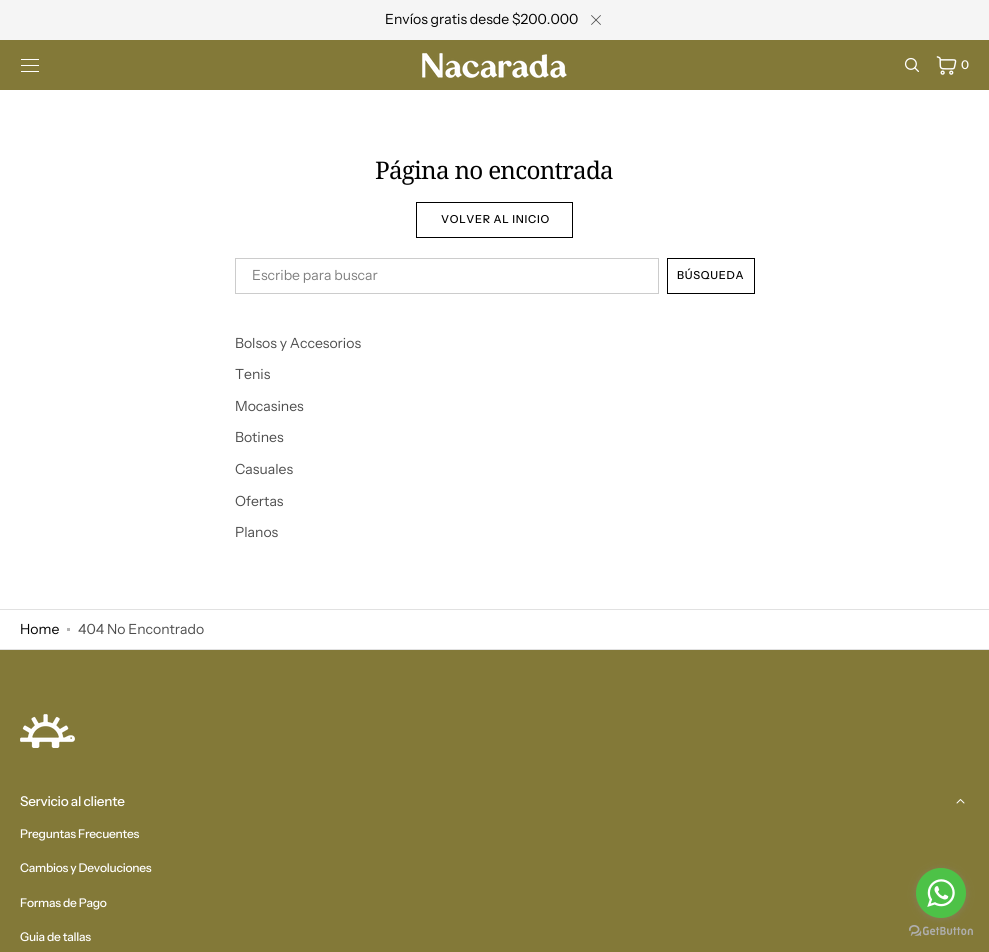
import math
import cairo

surface = cairo.ImageSurface(cairo.FORMAT_RGB24, 989, 952)
ctx = cairo.Context(surface)
options = cairo.FontOptions()
options.set_hint_metrics(cairo.HINT_METRICS_OFF)
options.set_hint_style(cairo.HINT_STYLE_NONE)
ctx.set_font_options(options)
ctx.set_miter_limit(4)


def set_color(code):
    ctx.set_source_rgb(*(v / 255 for v in bytes.fromhex(code[-6:])))


def draw_text(x, y, s, family, size, color, bold=False, italic=False):
    ctx.select_font_face(family, cairo.FONT_SLANT_ITALIC if italic else cairo.FONT_SLANT_NORMAL, cairo.FONT_WEIGHT_BOLD if bold else cairo.FONT_WEIGHT_NORMAL)
    ctx.set_font_size(size)
    set_color(color)
    ctx.move_to(x, y)
    ctx.show_text(s)


def draw_spaced(x, y, s, letter, word):
    ctx.move_to(x, y)
    for ch in s:
        ctx.show_text(ch)
        ctx.rel_move_to(letter + word * (ch == ' '), 0)


def fill_rect(x, y, w, h, color):
    set_color(color)
    ctx.rectangle(x, y, w, h)
    ctx.fill()


def rounded_rect(x, y, w, h, r):
    ctx.new_sub_path()
    for i, (u, v) in enumerate([(x + w - r, y + h - r), (x + r, y + h - r), (x + r, y + r), (x + w - r, y + r)]):
        ctx.arc(u, v, r, i * math.pi / 2, (i + 1) * math.pi / 2)
    ctx.close_path()


def draw_shadow(x, y, w, h, r, blur, alpha):
    ctx.push_group_with_content(cairo.CONTENT_ALPHA)
    ctx.set_operator(cairo.OPERATOR_SOURCE)
    for i in range(15, -16, -2):
        e = blur * i / 6
        if min(w, h) + 2 * e > 0:
            ctx.set_source_rgba(0, 0, 0, alpha * math.erfc((i - 1) / 8.5) / 2)
            rounded_rect(x - e, y - e, w + 2 * e, h + 2 * e, max(0, min(r + e + blur * .6, min(w, h) / 2 + e)))
            ctx.fill()
    ctx.mask(ctx.pop_group())


def draw_image(path, x, y, w, h):
    ctx.save()
    ctx.set_source_surface(cairo.ImageSurface.create_from_png(path), x, y)
    ctx.rectangle(x, y, w, h)
    ctx.fill()
    ctx.restore()


set_color("#ffffff")
ctx.paint()
fill_rect(0, 0, 989, 40, "#f5f5f5")
draw_text(385, 24, "Envíos gratis desde $200.000", "Instrument Sans", 14, "#000000")
draw_image("assets/img1.png", 591, 15, 10, 10)
fill_rect(0, 40, 989, 50, "#837938")
fill_rect(21, 59, 18, 1, "#ffffff")
fill_rect(21, 65, 18, 1, "#ffffff")
fill_rect(21, 71, 18, 1, "#ffffff")
draw_image("assets/img2.png", 422, 53, 145, 25)
draw_image("assets/img3.png", 904, 57, 15, 15)
draw_image("assets/img4.png", 936, 56, 21, 19)
draw_text(961, 69, "0", "Instrument Sans Medium", 12, "#ffffff")
ctx.select_font_face("Noto Serif")
ctx.set_font_size(24.25)
set_color("#000000")
draw_spaced(375, 179, "Página no encontrada", -0.75, 0)
ctx.rectangle(416.5, 202.5, 156, 35)
ctx.set_line_width(1)
ctx.stroke()
ctx.select_font_face("Instrument Sans Medium")
ctx.set_font_size(11)
draw_spaced(441, 223, "VOLVER AL INICIO", 0.7, 0)
ctx.rectangle(235.5, 258.5, 423, 35)
set_color("#cccccc")
ctx.stroke()
draw_text(252, 280, "Escribe para buscar", "Instrument Sans", 14, "#808080")
ctx.rectangle(667.5, 258.5, 87, 35)
set_color("#000000")
ctx.stroke()
ctx.select_font_face("Instrument Sans Medium")
ctx.set_font_size(11)
draw_spaced(677, 279, "BÚSQUEDA", 0.7, 0)
draw_text(235, 348, "Bolsos y Accesorios", "Instrument Sans", 14, "#4d4d4d")
draw_text(235, 379, "Tenis", "Instrument Sans", 14, "#4d4d4d")
draw_text(235, 411, "Mocasines", "Instrument Sans", 14, "#4d4d4d")
draw_text(235, 442, "Botines", "Instrument Sans", 14, "#4d4d4d")
draw_text(235, 474, "Casuales", "Instrument Sans", 14, "#4d4d4d")
draw_text(235, 506, "Ofertas", "Instrument Sans", 14, "#4d4d4d")
draw_text(235, 537, "Planos", "Instrument Sans", 14, "#4d4d4d")
fill_rect(0, 609, 989, 1, "#e1e1e1")
draw_text(20, 634, "Home", "Instrument Sans", 14, "#000000")
fill_rect(67, 628, 3, 3, "#b3b3b3")
draw_text(78, 634, "404 No Encontrado", "Instrument Sans", 14, "#4d4d4d")
fill_rect(0, 650, 989, 302, "#837938")
fill_rect(0, 649, 989, 1, "#e1e1e1")
draw_image("assets/img5.png", 20, 714, 55, 34)
ctx.select_font_face("Instrument Sans Medium")
ctx.set_font_size(13.5)
set_color("#ffffff")
draw_spaced(20, 806, "Servicio al cliente", -0.25, 0)
ctx.new_path()
ctx.move_to(957, 803)
ctx.line_to(960.5, 799.5)
ctx.line_to(964, 803)
ctx.set_line_cap(cairo.LINE_CAP_ROUND)
ctx.set_line_join(cairo.LINE_JOIN_ROUND)
ctx.stroke()
ctx.set_font_size(12)
draw_spaced(20, 838, "Preguntas Frecuentes", -0.25, 0)
draw_spaced(20, 872, "Cambios y Devoluciones", -0.25, 0)
draw_spaced(20, 907, "Formas de Pago", -0.25, 0)
draw_spaced(20, 941, "Guia de tallas", -0.25, 0)
draw_image("assets/img7.png", 909, 925, 64, 11)
set_color("#888888")
draw_shadow(916, 869, 50, 50, 25, 3.5, 0.4)
set_color("#4dc247")
ctx.arc(941, 893, 25, 0, 2 * math.pi)
ctx.fill()
draw_image("assets/img6.png", 927, 879, 28, 28)
surface.write_to_png("output.png")
